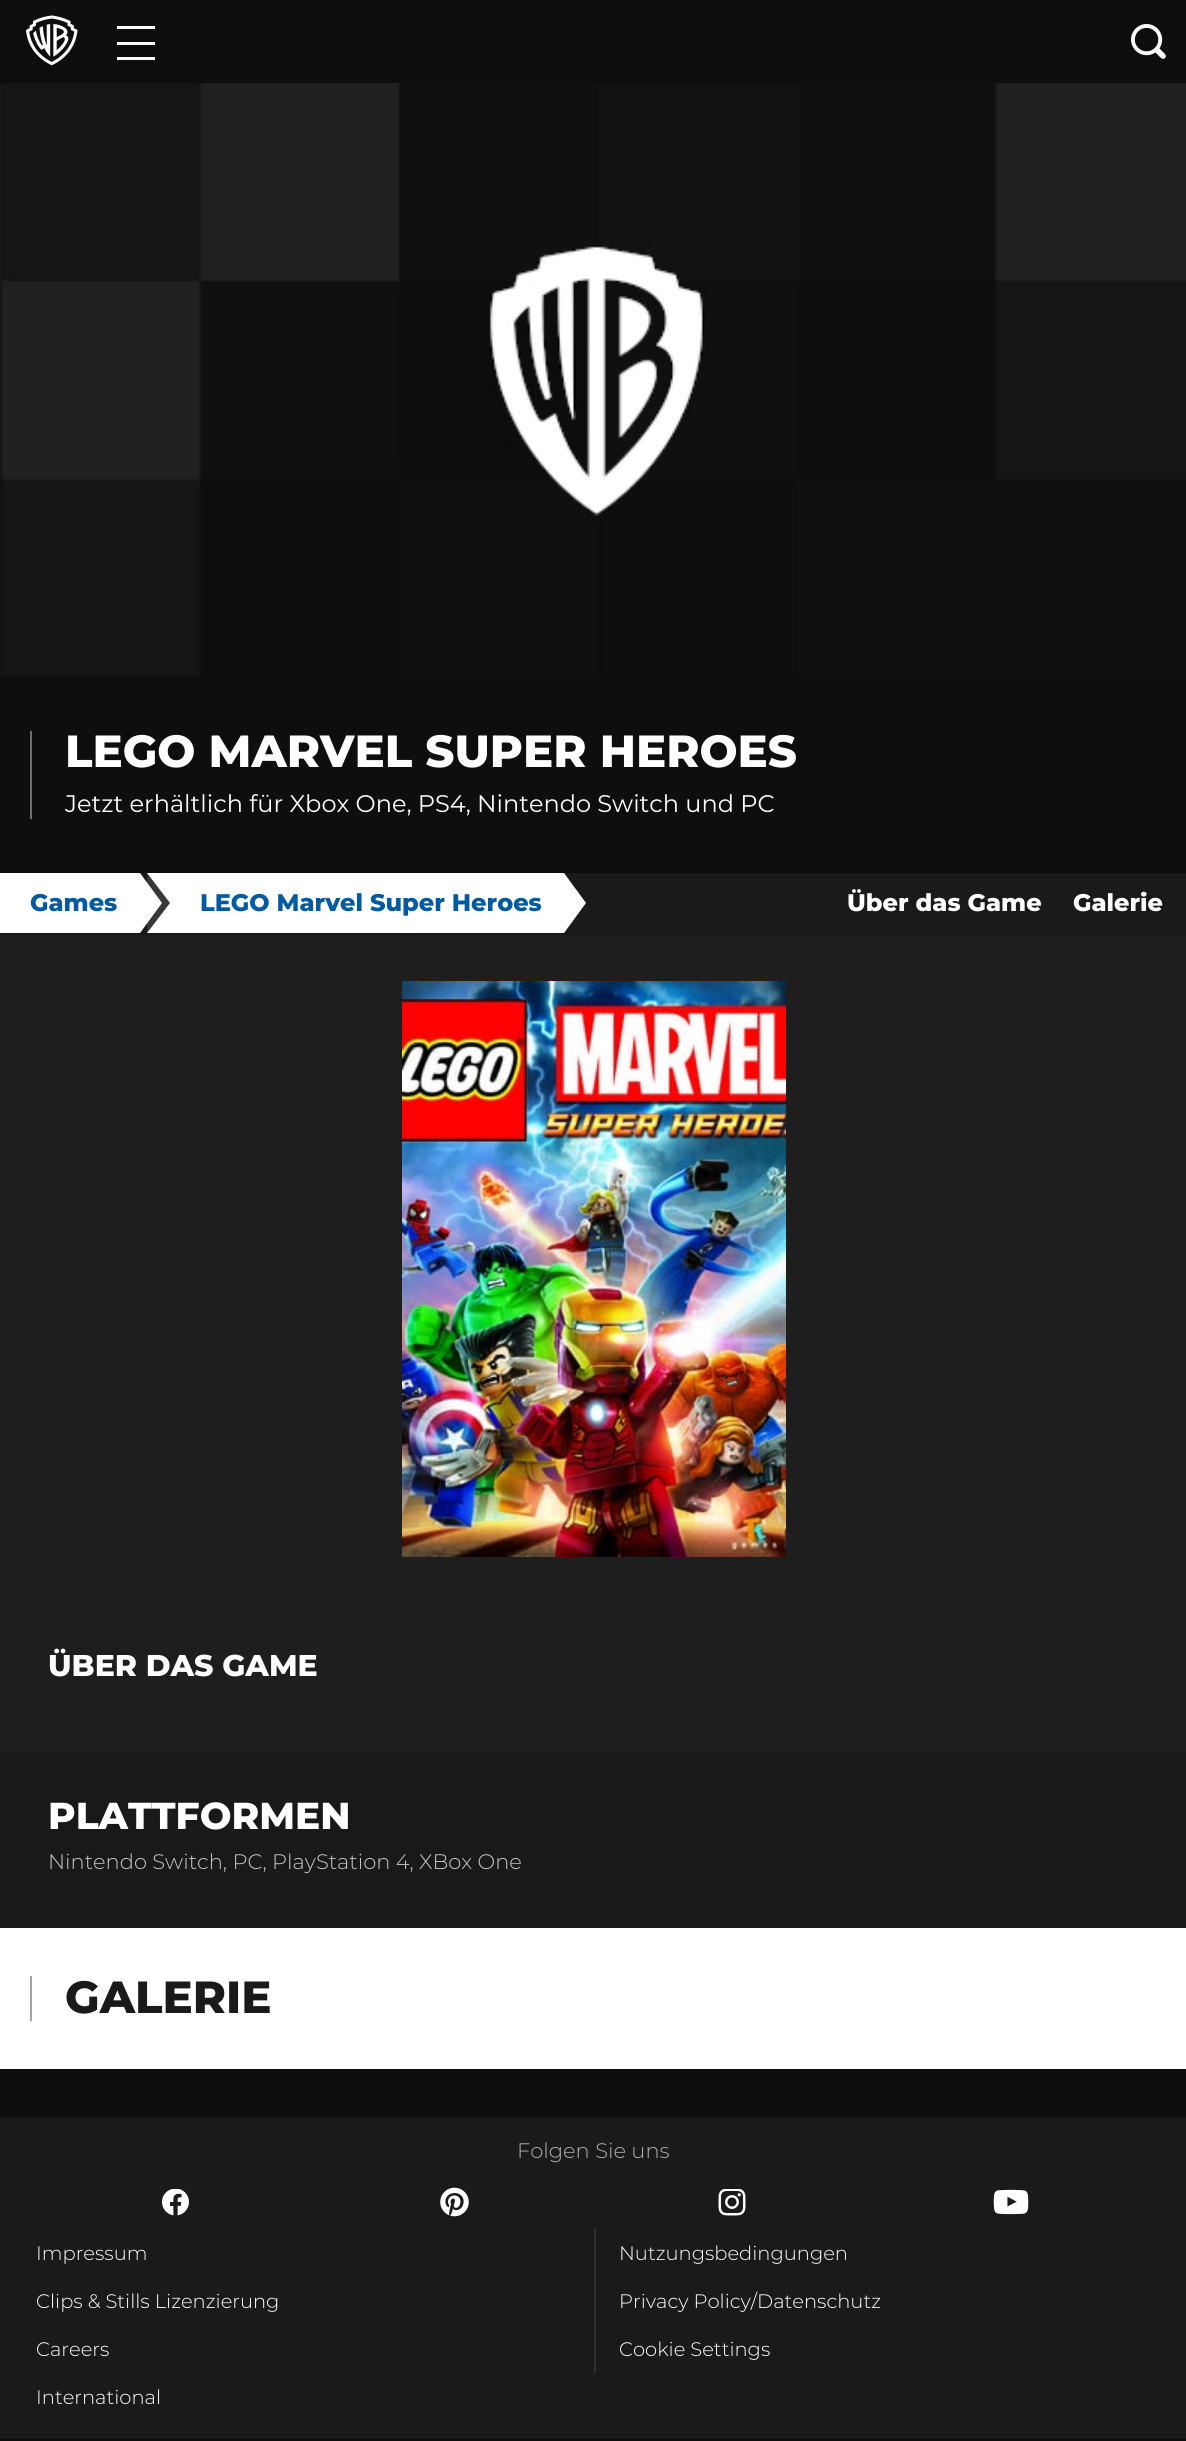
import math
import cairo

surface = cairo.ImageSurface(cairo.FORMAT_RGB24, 1186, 2441)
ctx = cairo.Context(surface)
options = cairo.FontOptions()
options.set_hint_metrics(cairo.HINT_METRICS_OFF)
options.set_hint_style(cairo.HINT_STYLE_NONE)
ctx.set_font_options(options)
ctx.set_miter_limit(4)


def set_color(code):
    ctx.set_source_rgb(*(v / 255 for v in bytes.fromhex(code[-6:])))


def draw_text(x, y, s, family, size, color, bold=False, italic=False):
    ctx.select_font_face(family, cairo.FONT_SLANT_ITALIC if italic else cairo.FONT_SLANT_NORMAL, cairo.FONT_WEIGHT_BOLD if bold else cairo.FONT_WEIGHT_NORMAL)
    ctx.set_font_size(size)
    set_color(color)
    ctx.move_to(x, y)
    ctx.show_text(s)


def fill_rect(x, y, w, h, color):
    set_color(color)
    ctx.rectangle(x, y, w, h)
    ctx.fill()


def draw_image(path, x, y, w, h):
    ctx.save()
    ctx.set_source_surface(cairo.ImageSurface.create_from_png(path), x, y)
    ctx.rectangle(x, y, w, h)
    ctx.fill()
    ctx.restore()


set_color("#0e0e0e")
ctx.paint()
draw_image("assets/img3.png", 0, 82, 1186, 594)
ctx.set_source_rgba(0.055, 0.055, 0.055, 0.99)
ctx.rectangle(0, 82, 1186, 1)
ctx.fill()
draw_image("assets/img1.png", 26, 15, 52, 51)
fill_rect(117, 26, 38, 3, "#fdfdfd")
fill_rect(117, 42, 38, 3, "#fdfdfd")
fill_rect(117, 57, 38, 3, "#fdfdfd")
draw_image("assets/img2.png", 1131, 24, 35, 35)
fill_rect(30, 731, 2, 88, "#6e6e6e")
draw_text(65, 767, "LEGO MARVEL SUPER HEROES", "Montserrat ExtraBold", 45, "#ffffff")
draw_text(65, 812, "Jetzt erhältlich für Xbox One, PS4, Nintendo Switch und PC", "Montserrat", 24, "#ffffff")
fill_rect(0, 873, 1186, 63, "#1a1a1a")
fill_rect(0, 873, 140, 60, "#ffffff")
draw_text(30, 911, "Games", "Montserrat ExtraBold", 24, "#005aa3")
fill_rect(147, 873, 417, 60, "#ffffff")
set_color("#373737")
ctx.new_path()
ctx.move_to(147, 933)
ctx.line_to(147, 873)
ctx.line_to(170, 903)
ctx.close_path()
ctx.fill()
set_color("#ffffff")
ctx.new_path()
ctx.move_to(140, 933)
ctx.line_to(140, 873)
ctx.line_to(162, 903)
ctx.close_path()
ctx.fill()
draw_text(200, 911, "LEGO Marvel Super Heroes", "Montserrat ExtraBold", 24, "#005aa3")
set_color("#ffffff")
ctx.new_path()
ctx.move_to(564, 933)
ctx.line_to(564, 873)
ctx.line_to(586, 903)
ctx.close_path()
ctx.fill()
draw_text(847, 911, "Über das Game", "Montserrat ExtraBold", 24, "#ffffff")
draw_text(1073, 911, "Galerie", "Montserrat ExtraBold", 24, "#ffffff")
fill_rect(0, 936, 1186, 816, "#1e1e1e")
draw_image("assets/img4.png", 402, 981, 384, 576)
draw_text(48, 1676, "ÜBER DAS GAME", "Montserrat ExtraBold", 30, "#ffffff")
fill_rect(0, 1752, 1186, 176, "#191919")
draw_text(48, 1829, "PLATTFORMEN", "Montserrat ExtraBold", 37.5, "#ffffff")
draw_text(48, 1869, "Nintendo Switch, PC, PlayStation 4, XBox One", "Montserrat Light", 21, "#c6c6c6")
fill_rect(0, 1928, 1186, 141, "#ffffff")
fill_rect(30, 1976, 2, 45, "#a5a5a5")
draw_text(65, 2013, "GALERIE", "Montserrat ExtraBold", 45, "#1a1a1a")
fill_rect(0, 2117, 1186, 322, "#1a1a1a")
draw_text(517, 2158, "Folgen Sie uns", "Montserrat Light", 21, "#aeaeae")
draw_image("assets/img5.png", 162, 2189, 27, 27)
draw_image("assets/img6.png", 440, 2187, 29, 30)
draw_image("assets/img7.png", 718, 2189, 28, 27)
draw_image("assets/img8.png", 993, 2189, 36, 26)
draw_text(36, 2260, "Impressum", "Montserrat Light", 19.5, "#ffffff")
draw_text(36, 2308, "Clips & Stills Lizenzierung", "Montserrat Light", 19.5, "#ffffff")
draw_text(36, 2356, "Careers", "Montserrat Light", 19.5, "#ffffff")
draw_text(36, 2404, "International", "Montserrat Light", 19.5, "#ffffff")
fill_rect(594, 2229, 2, 144, "#313131")
draw_text(619, 2260, "Nutzungsbedingungen", "Montserrat Light", 19.5, "#ffffff")
draw_text(619, 2308, "Privacy Policy/Datenschutz", "Montserrat Light", 19.5, "#ffffff")
draw_text(619, 2356, "Cookie Settings", "Montserrat Light", 19.5, "#ffffff")
surface.write_to_png("output.png")
